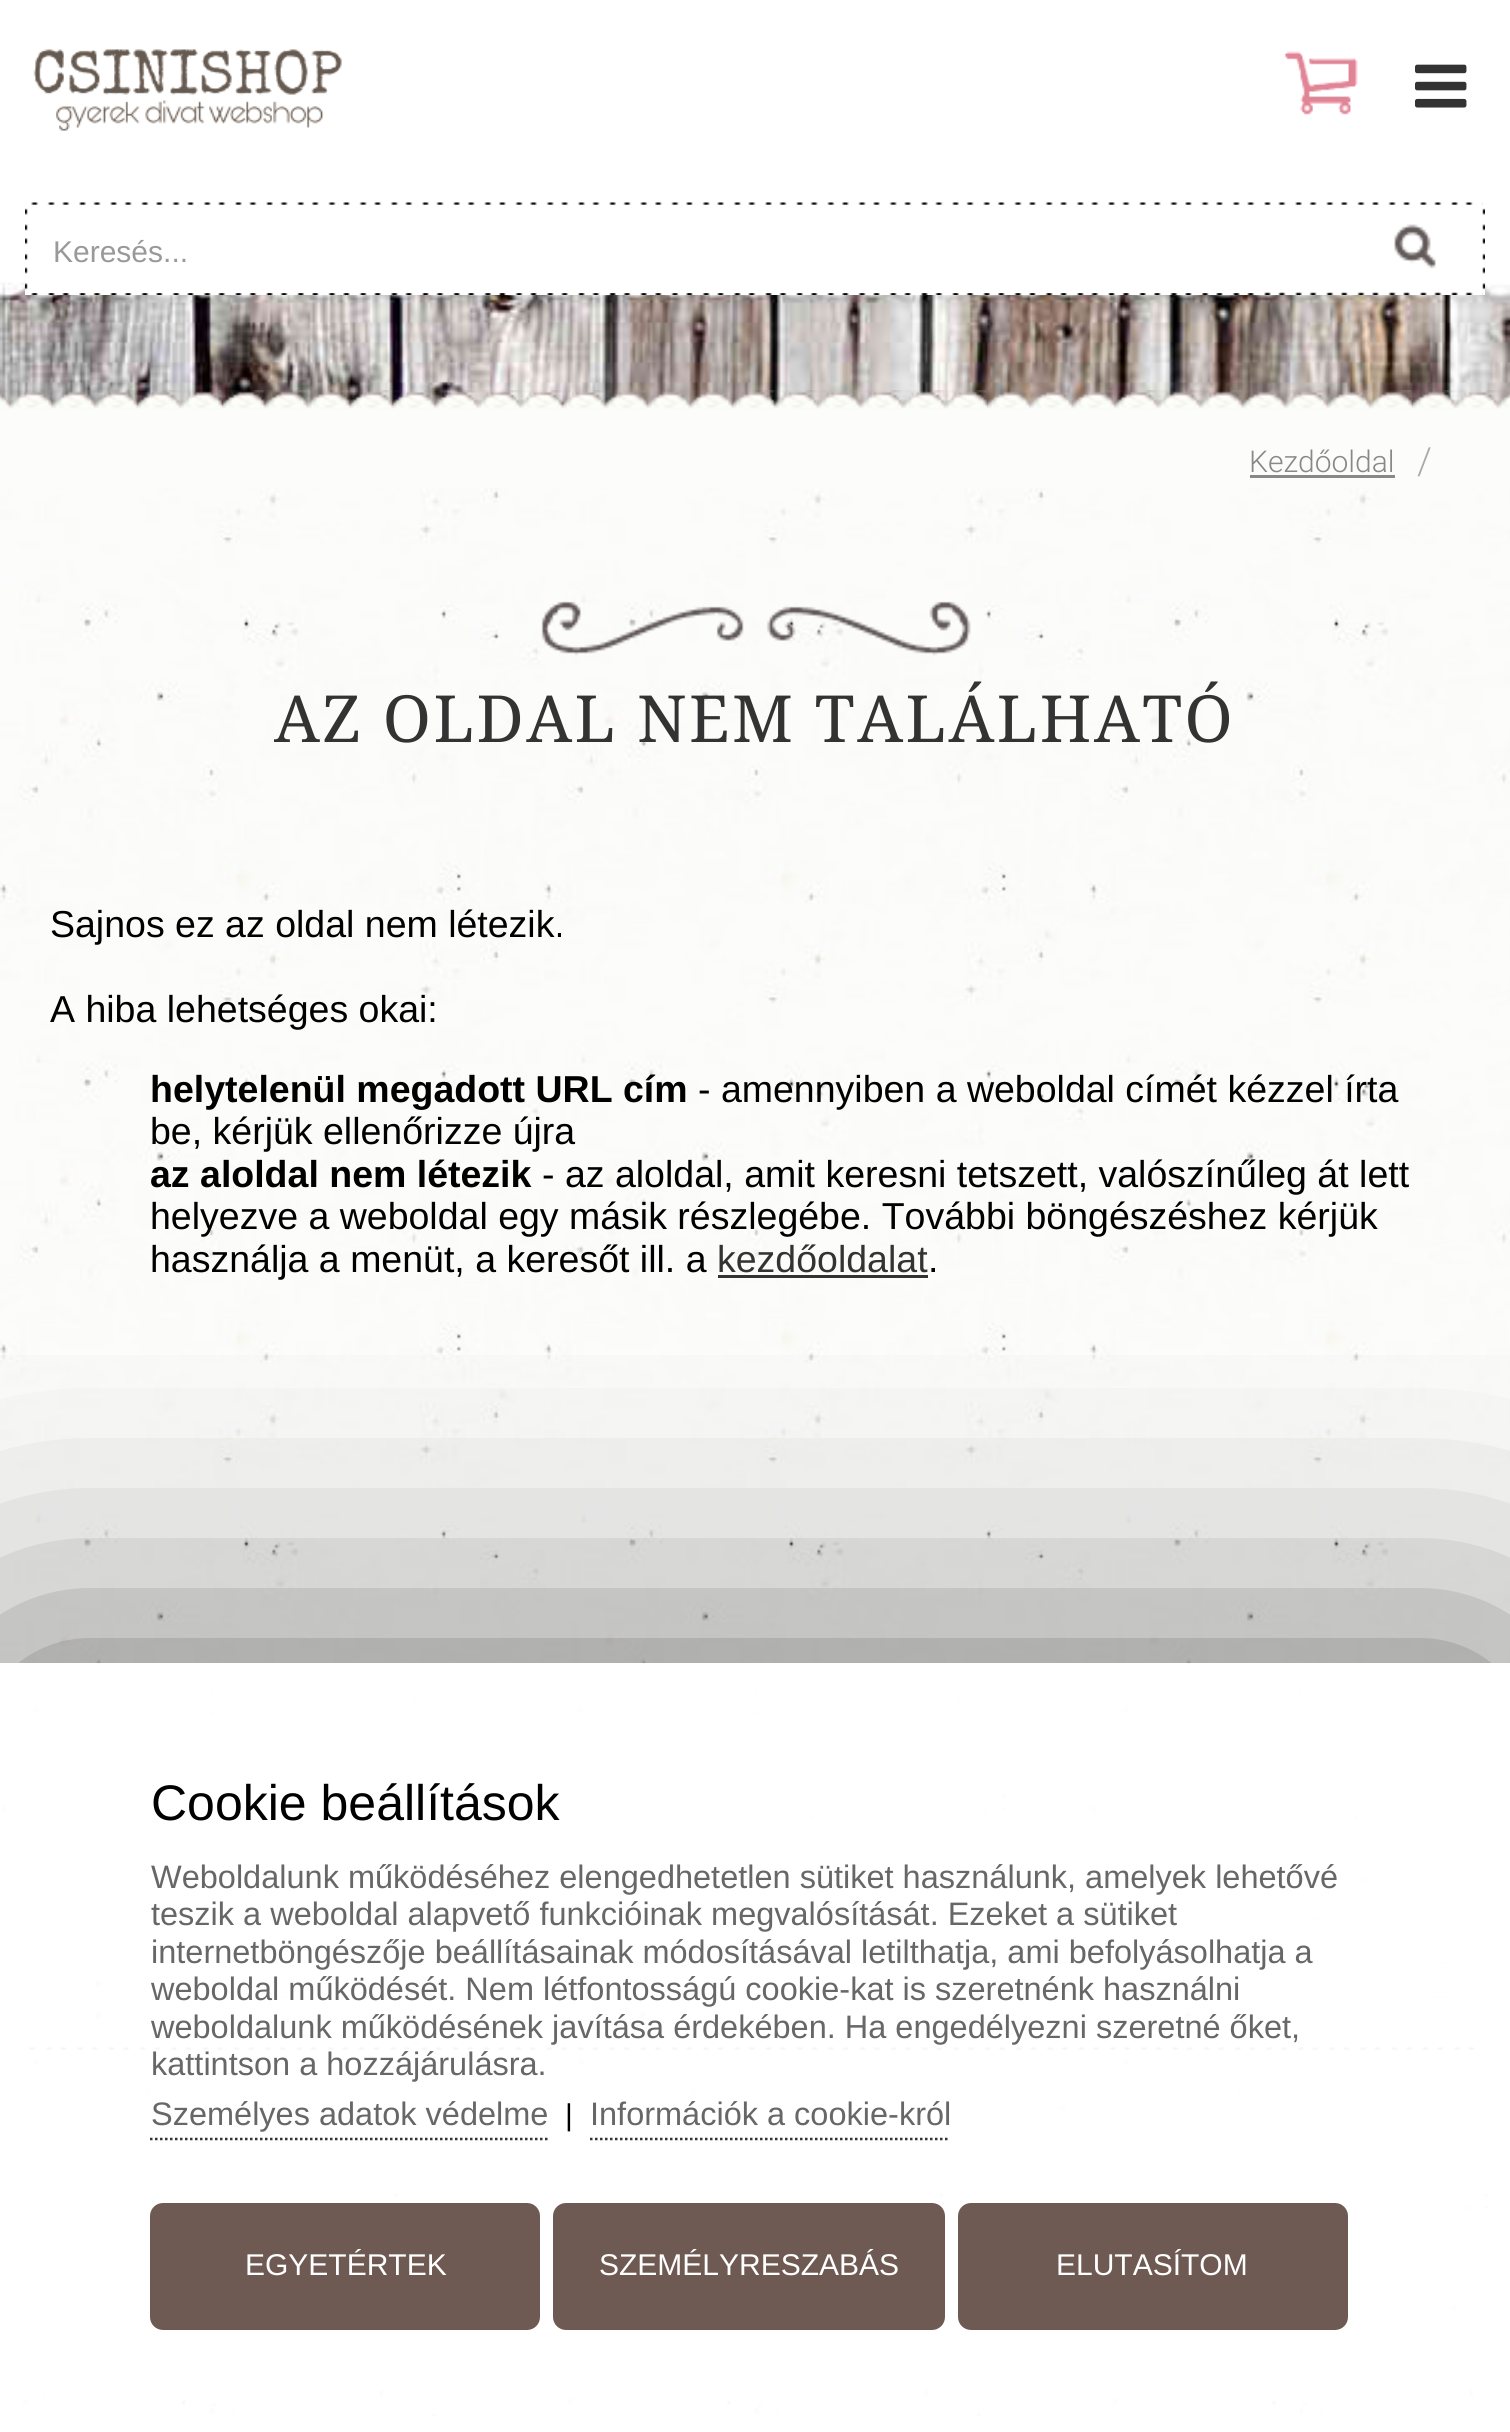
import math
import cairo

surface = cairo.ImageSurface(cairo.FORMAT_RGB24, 1510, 2432)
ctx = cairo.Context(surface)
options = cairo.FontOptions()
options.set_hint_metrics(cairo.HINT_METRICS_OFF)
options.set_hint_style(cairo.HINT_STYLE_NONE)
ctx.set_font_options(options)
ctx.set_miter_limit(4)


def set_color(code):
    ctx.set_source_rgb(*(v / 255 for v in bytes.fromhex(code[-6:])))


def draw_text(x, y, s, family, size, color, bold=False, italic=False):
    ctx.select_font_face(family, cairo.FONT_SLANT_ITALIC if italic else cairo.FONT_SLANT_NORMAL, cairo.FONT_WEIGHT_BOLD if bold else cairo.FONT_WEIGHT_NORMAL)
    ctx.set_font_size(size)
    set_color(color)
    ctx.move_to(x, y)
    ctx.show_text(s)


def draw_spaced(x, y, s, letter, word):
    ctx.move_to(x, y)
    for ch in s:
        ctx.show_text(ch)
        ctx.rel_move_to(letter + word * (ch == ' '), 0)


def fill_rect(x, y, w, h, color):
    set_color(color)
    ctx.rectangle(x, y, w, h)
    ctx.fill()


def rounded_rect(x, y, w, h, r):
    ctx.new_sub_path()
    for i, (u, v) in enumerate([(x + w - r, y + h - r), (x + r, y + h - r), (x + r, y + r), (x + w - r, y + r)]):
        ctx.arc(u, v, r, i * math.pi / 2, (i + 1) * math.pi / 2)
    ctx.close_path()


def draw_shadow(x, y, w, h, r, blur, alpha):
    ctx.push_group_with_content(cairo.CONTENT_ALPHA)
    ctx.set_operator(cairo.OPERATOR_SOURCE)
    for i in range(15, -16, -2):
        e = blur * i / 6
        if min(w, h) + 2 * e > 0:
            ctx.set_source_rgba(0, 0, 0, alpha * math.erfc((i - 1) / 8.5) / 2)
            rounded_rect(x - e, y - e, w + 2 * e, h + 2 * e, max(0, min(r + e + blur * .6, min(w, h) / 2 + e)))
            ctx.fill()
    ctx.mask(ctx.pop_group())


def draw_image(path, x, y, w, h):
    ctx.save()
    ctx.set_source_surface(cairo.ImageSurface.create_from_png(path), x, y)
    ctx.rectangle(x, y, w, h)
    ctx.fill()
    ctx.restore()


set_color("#ffffff")
ctx.paint()
draw_image("assets/img1.png", 0, 282, 1510, 1716)
draw_image("assets/img2.png", 33, 49, 309, 82)
draw_image("assets/img3.png", 1285, 51, 73, 64)
draw_image("assets/img4.png", 1415, 64, 52, 44)
fill_rect(25, 282, 1460, 13, "#ffffff")
draw_image("assets/img5.png", 25, 202, 1460, 93)
fill_rect(31, 292, 1224, 1, "#ffffff")
draw_text(53, 262, "Keresés...", "Liberation Sans", 30, "#999999")
draw_image("assets/img6.png", 1394, 224, 42, 45)
draw_image("assets/img7.png", 0, 390, 1510, 20)
fill_rect(0, 410, 1510, 78, "#fcfcfa")
draw_text(1249, 472, "Kezdőoldal", "Roboto Light", 30, "#888888")
fill_rect(1250, 475, 145, 3, "#888888")
draw_text(1417, 474, "/", "Roboto Light", 37.5, "#aaaaaa")
draw_image("assets/img8.png", 0, 488, 1510, 1475)
draw_image("assets/img9.png", 541, 601, 430, 55)
ctx.select_font_face("Noto Serif")
ctx.set_font_size(65)
set_color("#333333")
draw_spaced(274, 742, "AZ OLDAL NEM TALÁLHATÓ", 2.5, 0)
draw_text(50, 937, "Sajnos ez az oldal nem létezik.", "Liberation Sans", 37.5, "#000000")
draw_text(50, 1022, "A hiba lehetséges okai:", "Liberation Sans", 37.5, "#000000")
draw_text(150, 1102, "helytelenül megadott URL cím", "Liberation Sans", 37.5, "#000000", bold=True)
draw_text(698, 1102, "- amennyiben a weboldal címét kézzel írta", "Liberation Sans", 37.5, "#000000")
draw_text(150, 1144, "be, kérjük ellenőrizze újra", "Liberation Sans", 37.5, "#000000")
draw_text(150, 1187, "az aloldal nem létezik", "Liberation Sans", 37.5, "#000000", bold=True)
draw_text(542, 1187, "- az aloldal, amit keresni tetszett, valószínűleg át lett", "Liberation Sans", 37.5, "#000000")
draw_text(150, 1229, "helyezve a weboldal egy másik részlegébe. További böngészéshez kérjük", "Liberation Sans", 37.5, "#000000")
draw_text(150, 1272, "használja a menüt, a keresőt ill. a", "Liberation Sans", 37.5, "#000000")
draw_text(717, 1272, "kezdőoldalat", "Liberation Sans", 37.5, "#333333")
fill_rect(718, 1275, 210, 3, "#333333")
draw_text(928, 1272, ".", "Liberation Sans", 37.5, "#000000")
draw_image("assets/img10.png", 0, 1962, 1510, 36)
draw_image("assets/img11.png", 0, 1997, 1510, 435)
draw_image("assets/img12.png", 28, 2047, 1457, 3)
ctx.save()
ctx.rectangle(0, 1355, 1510, 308)
ctx.clip()
set_color("#666666")
draw_shadow(0, 1663, 1510, 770, 0, 150, 1)
ctx.restore()
ctx.set_source_rgba(1, 1, 1, 0.96)
ctx.rectangle(0, 1663, 1510, 769)
ctx.fill()
draw_text(151, 1820, "Cookie beállítások", "Liberation Sans", 50, "#000000")
draw_text(151, 1888, "Weboldalunk működéséhez elengedhetetlen sütiket használunk, amelyek lehetővé", "Liberation Sans", 32.5, "#676767")
draw_text(151, 1925, "teszik a weboldal alapvető funkcióinak megvalósítását. Ezeket a sütiket", "Liberation Sans", 32.5, "#676767")
draw_text(151, 1963, "internetböngészője beállításainak módosításával letilthatja, ami befolyásolhatja a", "Liberation Sans", 32.5, "#676767")
draw_text(151, 2000, "weboldal működését. Nem létfontosságú cookie-kat is szeretnénk használni", "Liberation Sans", 32.5, "#676767")
draw_text(151, 2038, "weboldalunk működésének javítása érdekében. Ha engedélyezni szeretné őket,", "Liberation Sans", 32.5, "#676767")
draw_text(151, 2075, "kattintson a hozzájárulásra.", "Liberation Sans", 32.5, "#676767")
ctx.new_path()
ctx.move_to(150, 2139)
ctx.line_to(547.5, 2139)
set_color("#333333")
ctx.set_line_width(2.5)
ctx.set_dash([2.5, 2.5])
ctx.stroke()
draw_text(151, 2125, "Személyes adatok védelme", "Liberation Sans", 32.5, "#676767")
draw_text(565, 2125, "|", "Liberation Sans", 30, "#000000")
ctx.new_path()
ctx.move_to(590, 2139)
ctx.line_to(950, 2139)
set_color("#333333")
ctx.stroke()
draw_text(590, 2125, "Információk a cookie-król", "Liberation Sans", 32.5, "#676767")
set_color("#6e5a53")
rounded_rect(150, 2203, 390, 127, 13)
ctx.fill()
draw_text(245, 2275, "EGYETÉRTEK", "Liberation Sans", 30, "#ffffff")
set_color("#6e5a53")
rounded_rect(553, 2203, 392, 127, 13)
ctx.fill()
draw_text(599, 2275, "SZEMÉLYRESZABÁS", "Liberation Sans", 30, "#ffffff")
set_color("#6e5a53")
rounded_rect(958, 2203, 390, 127, 13)
ctx.fill()
draw_text(1056, 2275, "ELUTASÍTOM", "Liberation Sans", 30, "#ffffff")
surface.write_to_png("output.png")
